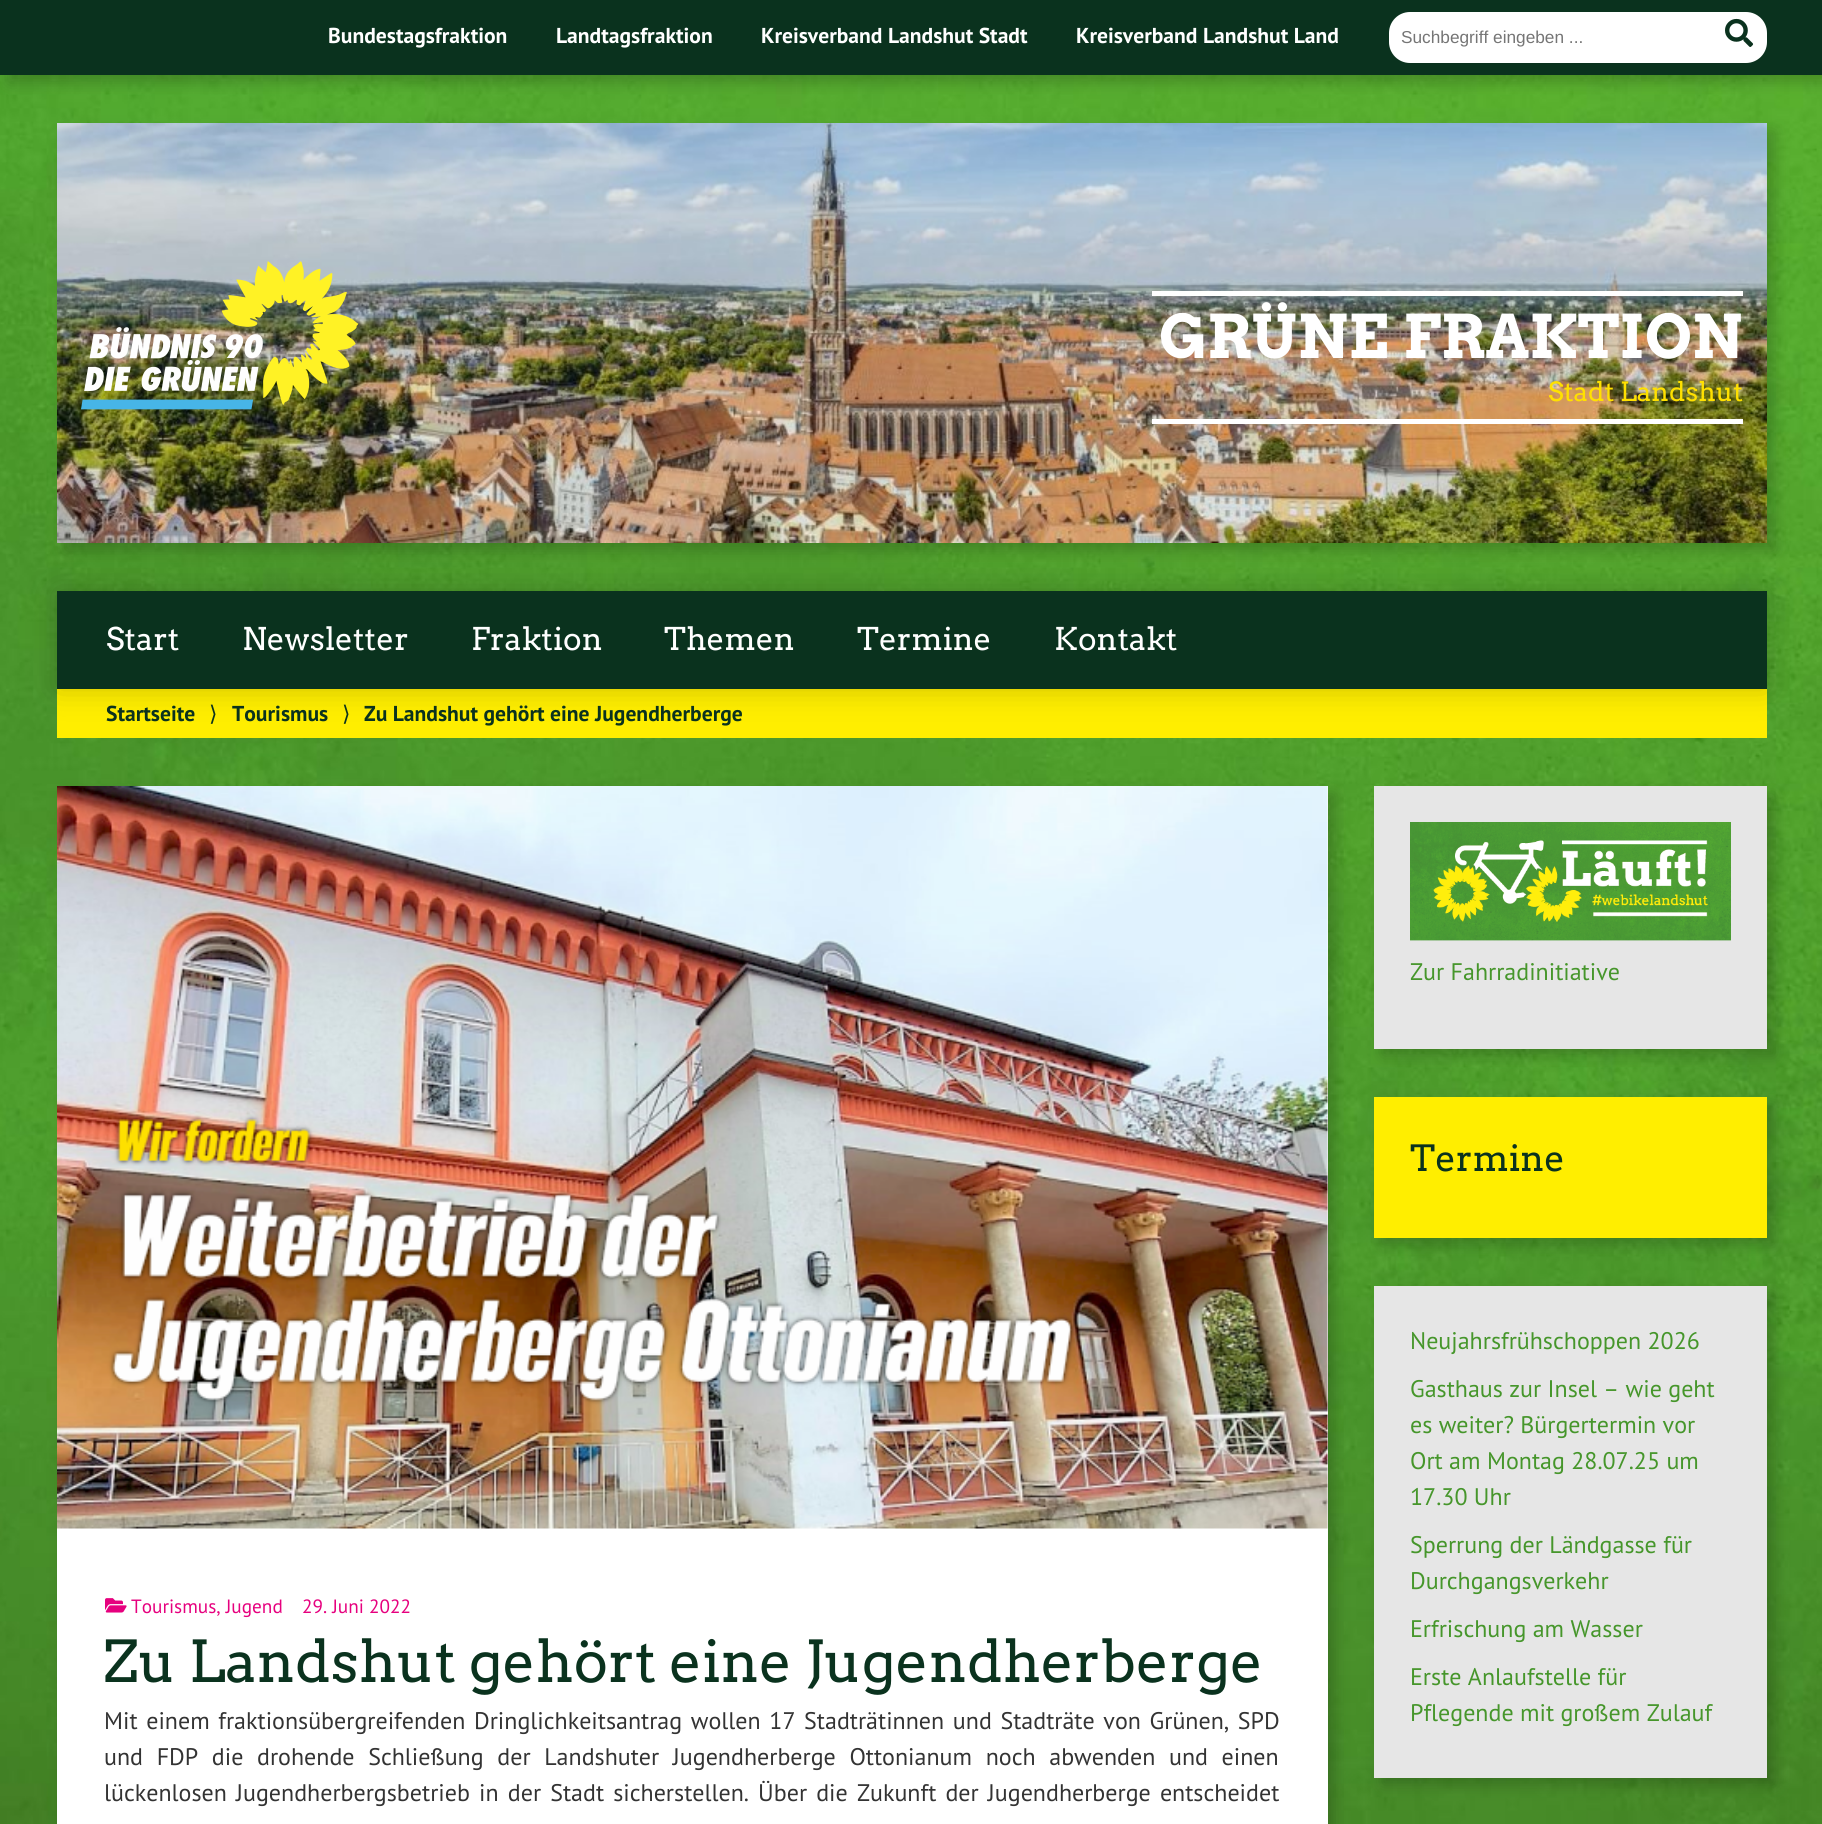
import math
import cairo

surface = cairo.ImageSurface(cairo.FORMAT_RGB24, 1822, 1824)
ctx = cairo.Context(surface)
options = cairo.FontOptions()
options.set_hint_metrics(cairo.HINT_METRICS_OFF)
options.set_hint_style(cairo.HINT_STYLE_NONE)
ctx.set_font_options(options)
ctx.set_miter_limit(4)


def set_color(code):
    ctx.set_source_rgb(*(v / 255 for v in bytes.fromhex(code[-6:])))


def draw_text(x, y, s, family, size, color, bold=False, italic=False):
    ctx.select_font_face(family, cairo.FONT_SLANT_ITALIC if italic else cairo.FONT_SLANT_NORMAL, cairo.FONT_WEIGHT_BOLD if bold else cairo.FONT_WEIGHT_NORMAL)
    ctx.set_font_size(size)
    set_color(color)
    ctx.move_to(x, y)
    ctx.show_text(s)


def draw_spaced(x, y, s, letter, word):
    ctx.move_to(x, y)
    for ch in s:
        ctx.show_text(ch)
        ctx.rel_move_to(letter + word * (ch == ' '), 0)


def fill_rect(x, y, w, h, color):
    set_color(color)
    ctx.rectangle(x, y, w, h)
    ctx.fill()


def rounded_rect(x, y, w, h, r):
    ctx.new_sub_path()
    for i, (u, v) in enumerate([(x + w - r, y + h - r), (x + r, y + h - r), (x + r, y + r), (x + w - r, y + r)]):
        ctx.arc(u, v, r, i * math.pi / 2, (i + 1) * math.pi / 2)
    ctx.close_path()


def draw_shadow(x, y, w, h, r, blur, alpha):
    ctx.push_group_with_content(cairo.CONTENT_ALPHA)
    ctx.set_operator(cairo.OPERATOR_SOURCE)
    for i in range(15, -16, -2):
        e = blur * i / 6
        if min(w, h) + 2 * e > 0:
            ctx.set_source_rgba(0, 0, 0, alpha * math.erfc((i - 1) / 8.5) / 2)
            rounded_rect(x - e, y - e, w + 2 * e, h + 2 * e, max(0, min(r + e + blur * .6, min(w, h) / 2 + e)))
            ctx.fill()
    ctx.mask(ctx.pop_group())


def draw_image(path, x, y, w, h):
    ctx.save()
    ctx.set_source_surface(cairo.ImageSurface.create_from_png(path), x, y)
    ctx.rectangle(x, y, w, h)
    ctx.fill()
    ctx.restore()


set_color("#ffffff")
ctx.paint()
draw_image("assets/img1.png", 0, 75, 1822, 1749)
set_color("#000000")
draw_shadow(8, 8, 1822, 75, 0, 7.5, 0.2)
fill_rect(0, 0, 1822, 75, "#0a321e")
draw_text(328, 43, "Bundestagsfraktion", "PT Sans", 21.6, "#ffffff", bold=True)
draw_text(556, 43, "Landtagsfraktion", "PT Sans", 21.6, "#ffffff", bold=True)
draw_text(761, 43, "Kreisverband Landshut Stadt", "PT Sans", 21.6, "#ffffff", bold=True)
draw_text(1076, 43, "Kreisverband Landshut Land", "PT Sans", 21.6, "#ffffff", bold=True)
rounded_rect(1389, 12, 378, 51, 21)
ctx.fill()
draw_text(1401, 43, "Suchbegriff eingeben ...", "Liberation Sans", 17.25, "#757575")
draw_image("assets/img2.png", 1725, 18, 29, 29)
set_color("#000000")
draw_shadow(65, 131, 1710, 420, 0, 7.5, 0.2)
draw_image("assets/img3.png", 57, 123, 1710, 420)
draw_image("assets/img4.png", 81, 261, 278, 149)
fill_rect(1152, 291, 591, 5, "#ffffff")
fill_rect(1152, 419, 591, 5, "#ffffff")
draw_text(1159, 358, "GRÜNE FRAKTION", "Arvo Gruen", 60, "#ffffff")
draw_text(1548, 401, "Stadt Landshut", "Arvo", 26.5, "#ffe000")
fill_rect(57, 689, 1710, 49, "#ffee00")
set_color("#000000")
draw_shadow(57, 591, 1710, 98, 0, 15, 0.2)
fill_rect(57, 591, 1710, 98, "#0a321e")
draw_text(106, 650, "Start", "Arvo", 31.25, "#ffffff")
draw_text(242, 650, "Newsletter", "Arvo", 31.25, "#ffffff")
draw_text(471, 650, "Fraktion", "Arvo", 31.25, "#ffffff")
draw_text(664, 650, "Themen", "Arvo", 31.25, "#ffffff")
draw_text(857, 650, "Termine", "Arvo", 31.25, "#ffffff")
draw_text(1054, 650, "Kontakt", "Arvo", 31.25, "#ffffff")
draw_text(106, 721, "Startseite", "PT Sans", 21.6, "#0a321e", bold=True)
draw_text(209, 721, "⟩", "DejaVu Sans", 21.6, "#0a321e")
draw_text(232, 721, "Tourismus", "PT Sans", 21.6, "#0a321e", bold=True)
draw_text(342, 721, "⟩", "DejaVu Sans", 21.6, "#0a321e")
draw_text(364, 721, "Zu Landshut gehört eine Jugendherberge", "PT Sans", 21.6, "#0a321e", bold=True)
set_color("#000000")
draw_shadow(65, 794, 1270, 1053, 0, 7.5, 0.2)
fill_rect(57, 786, 1271, 1038, "#ffffff")
draw_image("assets/img5.png", 57, 786, 1271, 743)
draw_image("assets/img6.png", 105, 1598, 22, 15)
draw_text(131, 1613, "Tourismus, Jugend", "PT Sans", 19.25, "#e6007e")
draw_text(302, 1613, "29. Juni 2022", "PT Sans", 19.25, "#e6007e")
draw_text(104, 1682, "Zu Landshut gehört eine Jugendherberge", "Arvo", 57.6, "#0a321e")
ctx.select_font_face("PT Sans")
ctx.set_font_size(24)
set_color("#333333")
draw_spaced(104, 1729, "Mit einem fraktionsübergreifenden Dringlichkeitsantrag wollen 17 Stadträtinnen und Stadträte von Grünen, SPD", 0, 2.25)
draw_spaced(104, 1765, "und FDP die drohende Schließung der Landshuter Jugendherberge Ottonianum noch abwenden und einen", 0, 7.25)
draw_spaced(104, 1801, "lückenlosen Jugendherbergsbetrieb in der Stadt sicherstellen. Über die Zukunft der Jugendherberge entscheidet", 0, 2.75)
set_color("#000000")
draw_shadow(1382, 794, 393, 262, 0, 7.5, 0.2)
fill_rect(1374, 786, 393, 263, "#e6e6e6")
draw_image("assets/img7.png", 1410, 822, 321, 119)
draw_text(1410, 980, "Zur Fahrradinitiative", "PT Sans", 24, "#46962b")
set_color("#000000")
draw_shadow(1382, 1104, 393, 141, 0, 7.5, 0.2)
fill_rect(1374, 1097, 393, 141, "#ffee00")
draw_text(1410, 1171, "Termine", "Arvo", 36, "#0a321e")
set_color("#000000")
draw_shadow(1382, 1293, 393, 492, 0, 7.5, 0.2)
fill_rect(1374, 1286, 393, 492, "#e6e6e6")
draw_text(1410, 1349, "Neujahrsfrühschoppen 2026", "PT Sans", 24, "#46962b")
draw_text(1410, 1397, "Gasthaus zur Insel – wie geht", "PT Sans", 24, "#46962b")
draw_text(1410, 1433, "es weiter? Bürgertermin vor", "PT Sans", 24, "#46962b")
draw_text(1410, 1469, "Ort am Montag 28.07.25 um", "PT Sans", 24, "#46962b")
draw_text(1410, 1505, "17.30 Uhr", "PT Sans", 24, "#46962b")
draw_text(1410, 1553, "Sperrung der Ländgasse für", "PT Sans", 24, "#46962b")
draw_text(1410, 1589, "Durchgangsverkehr", "PT Sans", 24, "#46962b")
draw_text(1410, 1637, "Erfrischung am Wasser", "PT Sans", 24, "#46962b")
draw_text(1410, 1685, "Erste Anlaufstelle für", "PT Sans", 24, "#46962b")
draw_text(1410, 1721, "Pflegende mit großem Zulauf", "PT Sans", 24, "#46962b")
surface.write_to_png("output.png")
